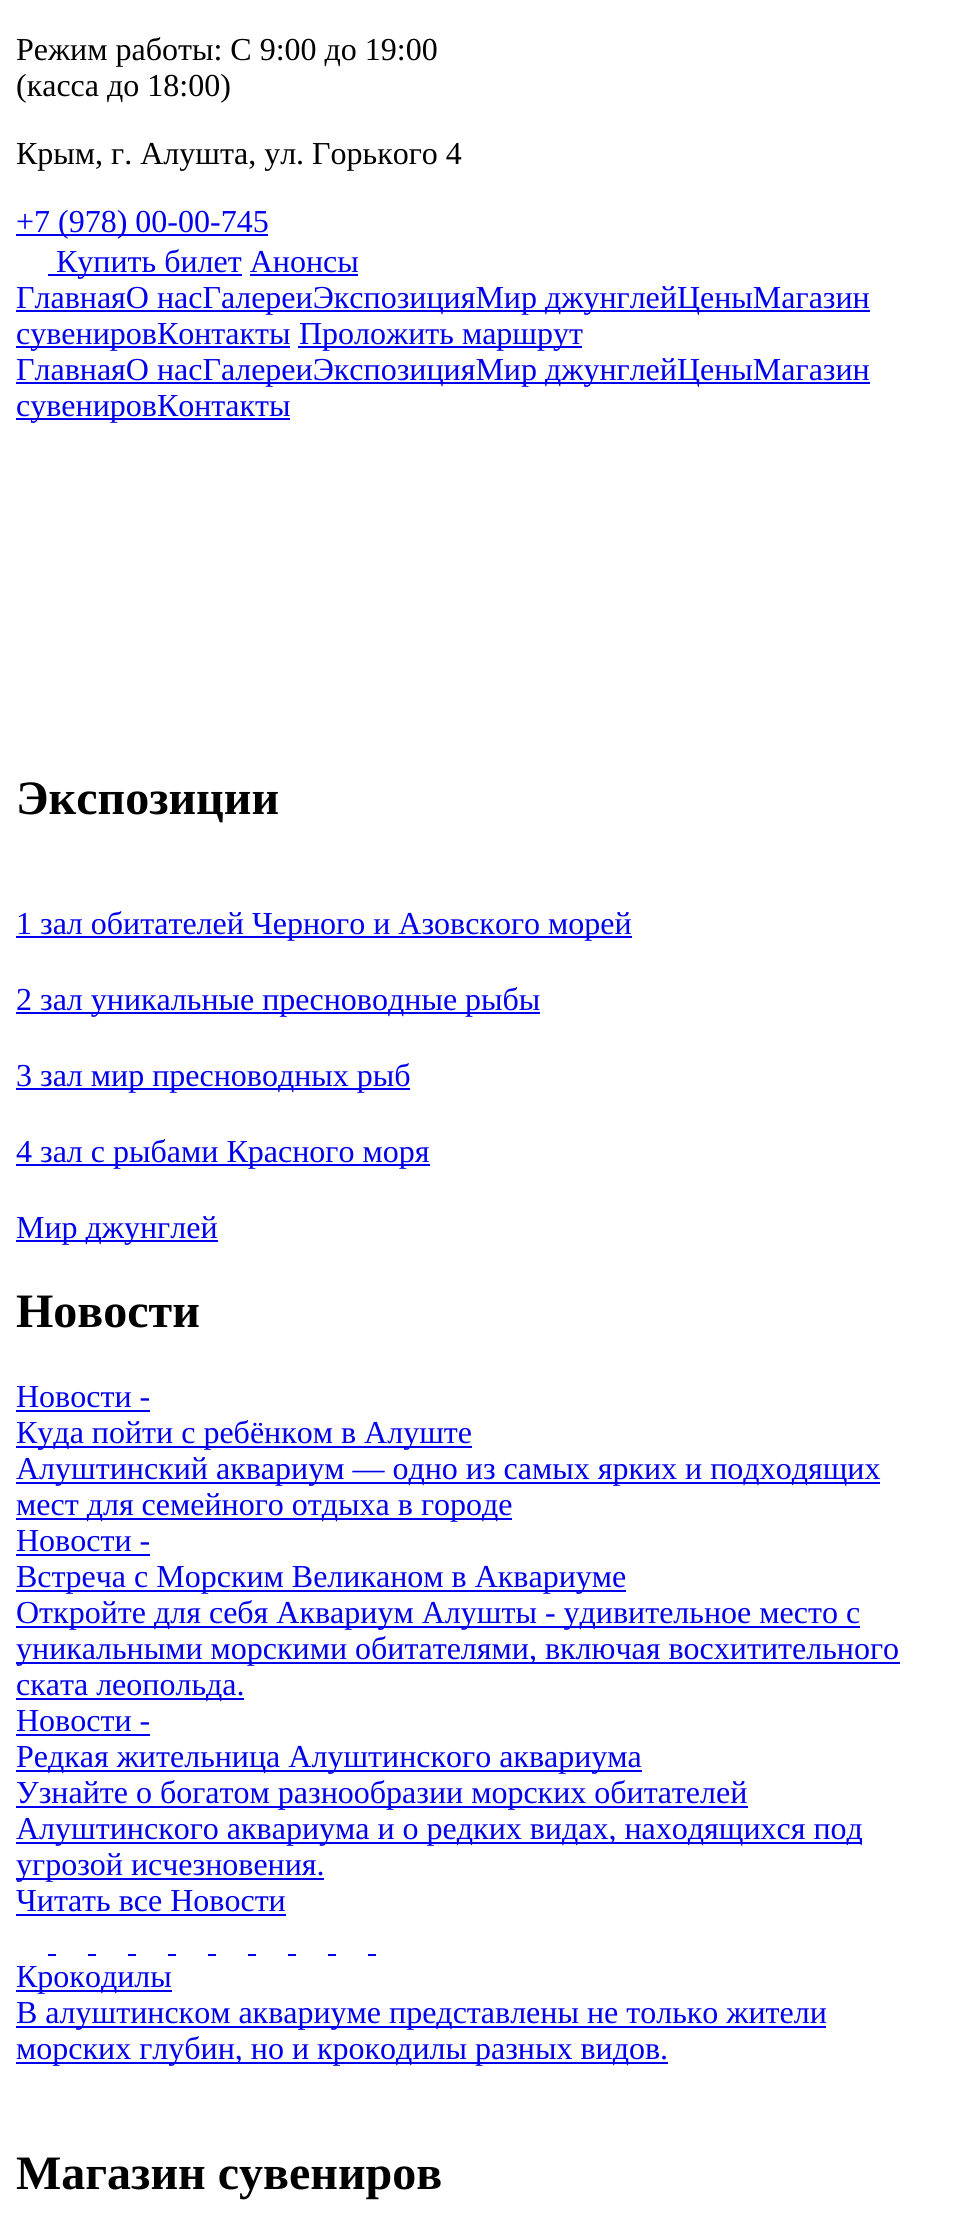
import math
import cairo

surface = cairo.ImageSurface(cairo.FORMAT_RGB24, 953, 2213)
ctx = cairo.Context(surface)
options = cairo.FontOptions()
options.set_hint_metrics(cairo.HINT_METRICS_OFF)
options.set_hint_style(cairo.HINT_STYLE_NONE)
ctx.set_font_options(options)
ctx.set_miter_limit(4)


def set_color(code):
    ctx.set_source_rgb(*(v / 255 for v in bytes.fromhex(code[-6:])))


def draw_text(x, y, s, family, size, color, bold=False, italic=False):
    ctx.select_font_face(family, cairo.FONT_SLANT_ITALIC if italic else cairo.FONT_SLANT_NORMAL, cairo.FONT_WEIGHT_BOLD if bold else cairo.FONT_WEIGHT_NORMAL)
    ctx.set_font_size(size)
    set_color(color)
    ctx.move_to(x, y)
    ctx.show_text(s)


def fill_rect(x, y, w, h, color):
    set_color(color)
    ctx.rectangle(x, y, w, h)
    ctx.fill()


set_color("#ffffff")
ctx.paint()
draw_text(16, 60, "Режим работы: С 9:00 до 19:00", "Liberation Serif", 32, "#000000")
draw_text(16, 96, "(касса до 18:00)", "Liberation Serif", 32, "#000000")
draw_text(16, 164, "Крым, г. Алушта, ул. Горького 4", "Liberation Serif", 32, "#000000")
fill_rect(16, 234, 252, 2, "#0000ee")
draw_text(16, 232, "+7 (978) 00-00-745", "Liberation Serif", 32, "#0000ee")
fill_rect(48, 274, 194, 2, "#0000ee")
draw_text(56, 272, "Купить билет Анонсы", "Liberation Serif", 32, "#0000ee")
fill_rect(250, 274, 108, 2, "#0000ee")
fill_rect(16, 310, 736, 2, "#0000ee")
draw_text(16, 308, "ГлавнаяО насГалереиЭкспозицияМир джунглейЦеныМагазин", "Liberation Serif", 32, "#0000ee")
fill_rect(16, 346, 274, 2, "#0000ee")
draw_text(16, 344, "сувенировКонтакты", "Liberation Serif", 32, "#0000ee")
fill_rect(752, 310, 118, 2, "#0000ee")
fill_rect(298, 346, 284, 2, "#0000ee")
draw_text(299, 344, "Проложить маршрут", "Liberation Serif", 32, "#0000ee")
fill_rect(16, 382, 736, 2, "#0000ee")
draw_text(16, 380, "ГлавнаяО насГалереиЭкспозицияМир джунглейЦеныМагазин", "Liberation Serif", 32, "#0000ee")
fill_rect(16, 418, 274, 2, "#0000ee")
draw_text(16, 416, "сувенировКонтакты", "Liberation Serif", 32, "#0000ee")
fill_rect(752, 382, 118, 2, "#0000ee")
draw_text(16, 814, "Экспозиции", "Liberation Serif", 48, "#000000", bold=True)
fill_rect(16, 936, 616, 2, "#0000ee")
draw_text(16, 934, "1 зал обитателей Черного и Азовского морей", "Liberation Serif", 32, "#0000ee")
fill_rect(16, 1012, 524, 2, "#0000ee")
draw_text(16, 1010, "2 зал уникальные пресноводные рыбы", "Liberation Serif", 32, "#0000ee")
fill_rect(16, 1088, 394, 2, "#0000ee")
draw_text(16, 1086, "3 зал мир пресноводных рыб", "Liberation Serif", 32, "#0000ee")
fill_rect(16, 1164, 414, 2, "#0000ee")
draw_text(16, 1162, "4 зал с рыбами Красного моря", "Liberation Serif", 32, "#0000ee")
fill_rect(16, 1240, 202, 2, "#0000ee")
draw_text(16, 1238, "Мир джунглей", "Liberation Serif", 32, "#0000ee")
draw_text(16, 1327, "Новости", "Liberation Serif", 48, "#000000", bold=True)
draw_text(16, 1407, "Новости -", "Liberation Serif", 32, "#0000ee")
fill_rect(16, 1410, 134, 2, "#0000ee")
fill_rect(16, 1446, 456, 2, "#0000ee")
draw_text(16, 1443, "Куда пойти с ребёнком в Алуште", "Liberation Serif", 32, "#0000ee")
fill_rect(16, 1482, 864, 2, "#0000ee")
draw_text(16, 1479, "Алуштинский аквариум — одно из самых ярких и подходящих", "Liberation Serif", 32, "#0000ee")
fill_rect(16, 1518, 496, 2, "#0000ee")
draw_text(16, 1515, "мест для семейного отдыха в городе", "Liberation Serif", 32, "#0000ee")
draw_text(16, 1551, "Новости -", "Liberation Serif", 32, "#0000ee")
fill_rect(16, 1554, 134, 2, "#0000ee")
fill_rect(16, 1590, 610, 2, "#0000ee")
draw_text(16, 1587, "Встреча с Морским Великаном в Аквариуме", "Liberation Serif", 32, "#0000ee")
fill_rect(16, 1626, 844, 2, "#0000ee")
draw_text(16, 1623, "Откройте для себя Аквариум Алушты - удивительное место с", "Liberation Serif", 32, "#0000ee")
fill_rect(16, 1662, 884, 2, "#0000ee")
draw_text(16, 1659, "уникальными морскими обитателями, включая восхитительного", "Liberation Serif", 32, "#0000ee")
fill_rect(16, 1698, 228, 2, "#0000ee")
draw_text(16, 1695, "ската леопольда.", "Liberation Serif", 32, "#0000ee")
draw_text(16, 1731, "Новости -", "Liberation Serif", 32, "#0000ee")
fill_rect(16, 1734, 134, 2, "#0000ee")
fill_rect(16, 1770, 626, 2, "#0000ee")
draw_text(16, 1767, "Редкая жительница Алуштинского аквариума", "Liberation Serif", 32, "#0000ee")
fill_rect(16, 1806, 732, 2, "#0000ee")
draw_text(16, 1803, "Узнайте о богатом разнообразии морских обитателей", "Liberation Serif", 32, "#0000ee")
fill_rect(16, 1842, 846, 2, "#0000ee")
draw_text(16, 1839, "Алуштинского аквариума и о редких видах, находящихся под", "Liberation Serif", 32, "#0000ee")
fill_rect(16, 1878, 308, 2, "#0000ee")
draw_text(16, 1875, "угрозой исчезновения.", "Liberation Serif", 32, "#0000ee")
draw_text(16, 1911, "Читать все Новости", "Liberation Serif", 32, "#0000ee")
fill_rect(16, 1914, 270, 2, "#0000ee")
fill_rect(48, 1954, 8, 2, "#0000ee")
fill_rect(88, 1954, 8, 2, "#0000ee")
fill_rect(128, 1954, 8, 2, "#0000ee")
fill_rect(168, 1954, 8, 2, "#0000ee")
fill_rect(208, 1954, 8, 2, "#0000ee")
fill_rect(248, 1954, 8, 2, "#0000ee")
fill_rect(288, 1954, 8, 2, "#0000ee")
fill_rect(328, 1954, 8, 2, "#0000ee")
fill_rect(368, 1954, 8, 2, "#0000ee")
fill_rect(16, 1990, 156, 2, "#0000ee")
draw_text(16, 1987, "Крокодилы", "Liberation Serif", 32, "#0000ee")
fill_rect(16, 2026, 810, 2, "#0000ee")
draw_text(16, 2023, "В алуштинском аквариуме представлены не только жители", "Liberation Serif", 32, "#0000ee")
fill_rect(16, 2062, 652, 2, "#0000ee")
draw_text(16, 2059, "морских глубин, но и крокодилы разных видов.", "Liberation Serif", 32, "#0000ee")
draw_text(16, 2189, "Магазин сувениров", "Liberation Serif", 48, "#000000", bold=True)
surface.write_to_png("output.png")
